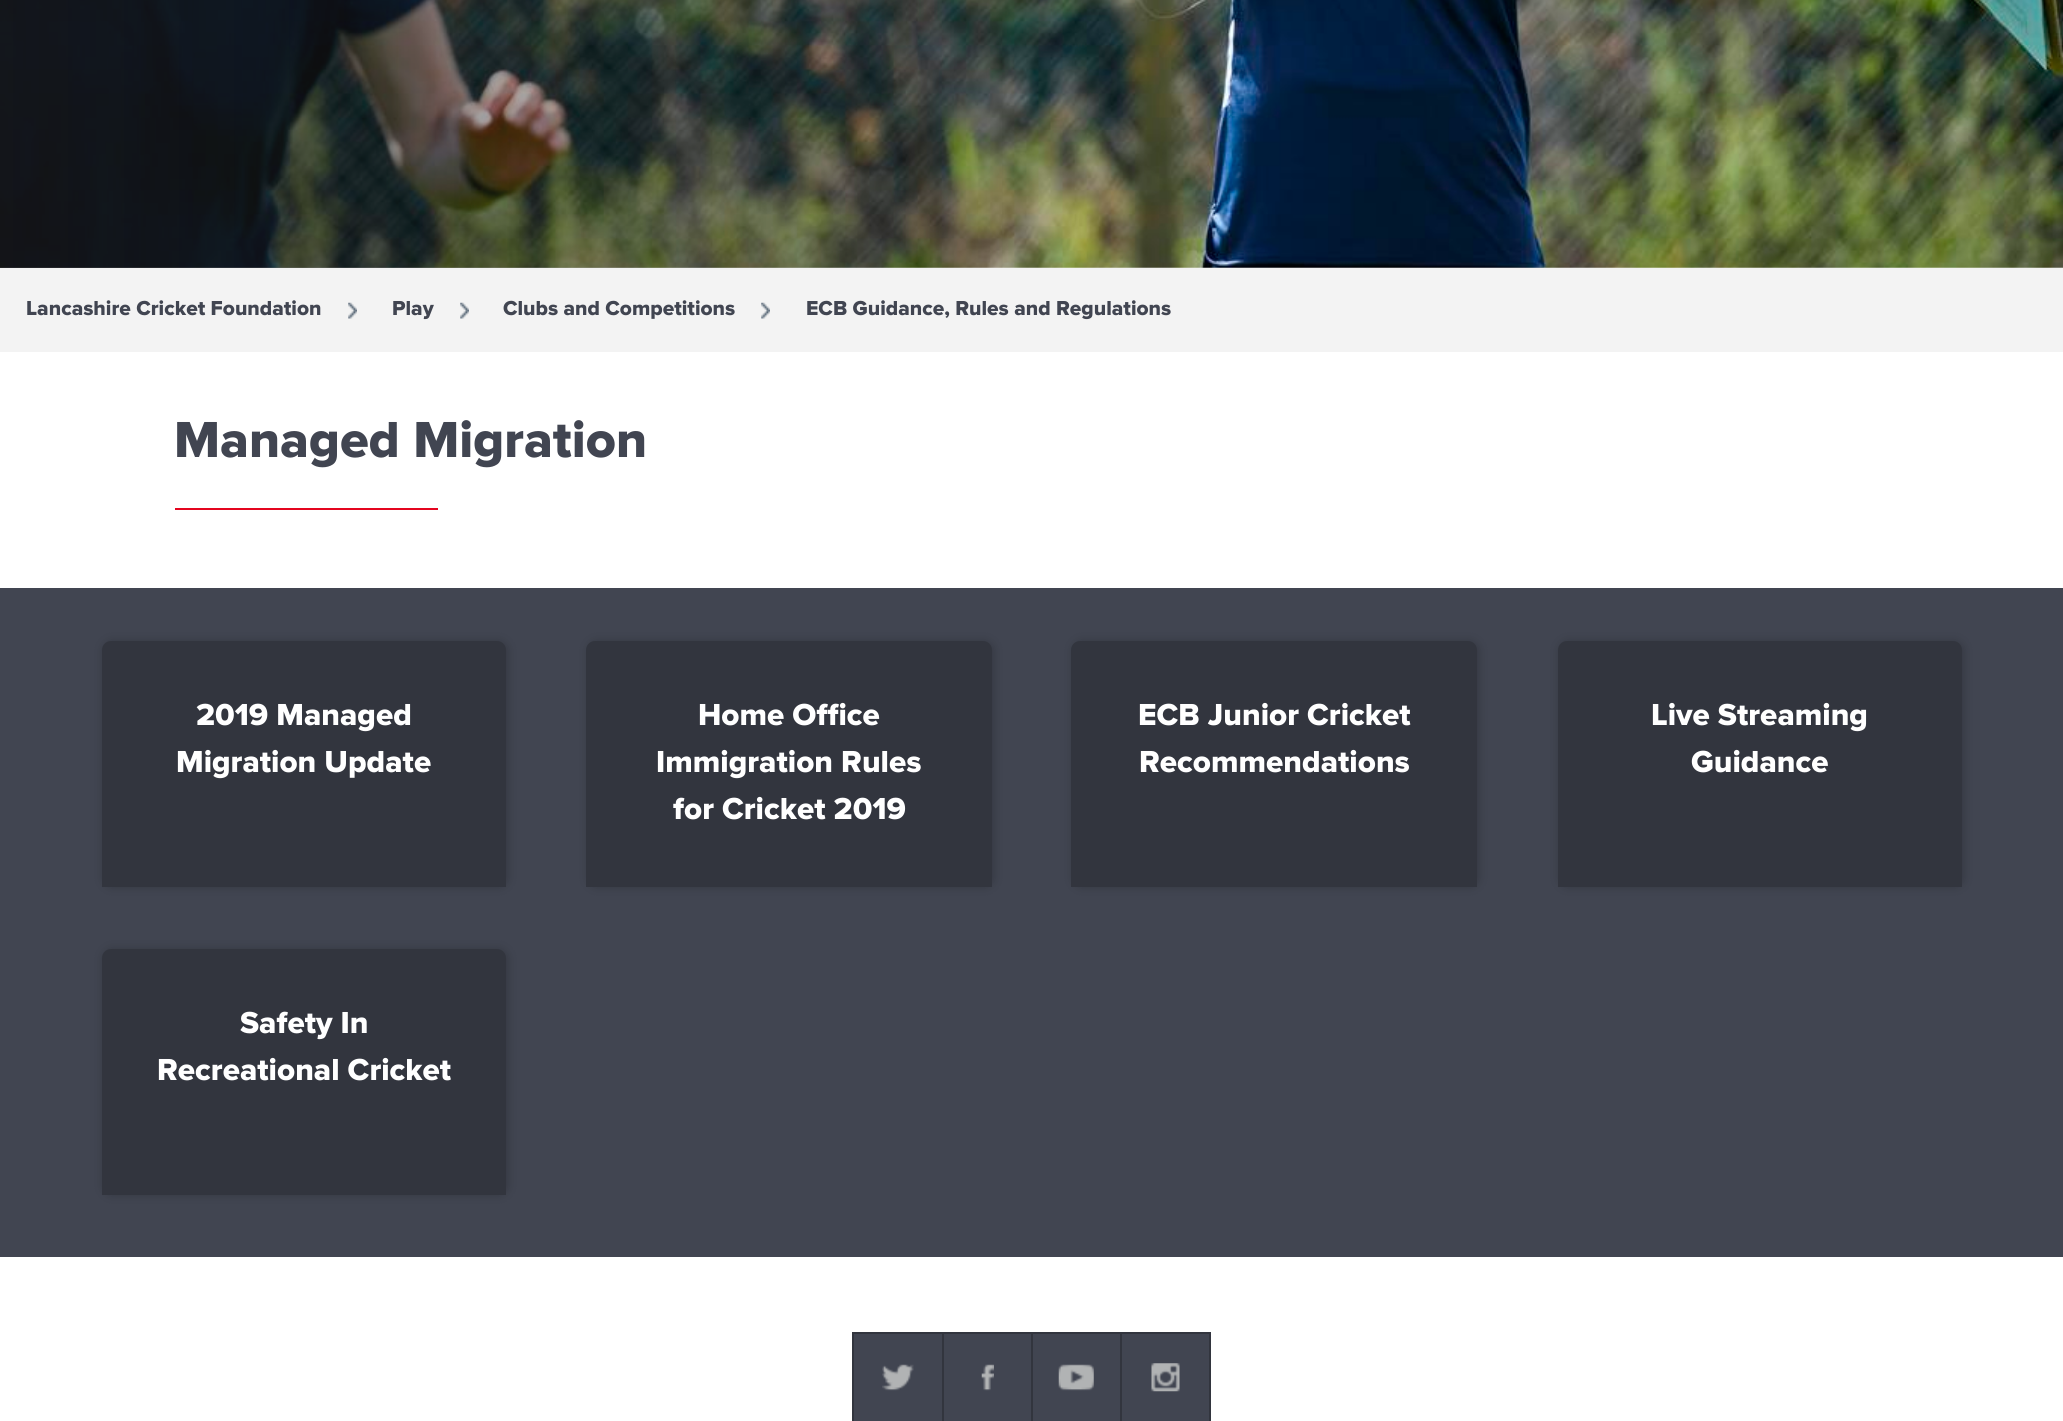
import math
import cairo

surface = cairo.ImageSurface(cairo.FORMAT_RGB24, 2063, 1421)
ctx = cairo.Context(surface)
options = cairo.FontOptions()
options.set_hint_metrics(cairo.HINT_METRICS_OFF)
options.set_hint_style(cairo.HINT_STYLE_NONE)
ctx.set_font_options(options)
ctx.set_miter_limit(4)


def set_color(code):
    ctx.set_source_rgb(*(v / 255 for v in bytes.fromhex(code[-6:])))


def draw_text(x, y, s, family, size, color, bold=False, italic=False):
    ctx.select_font_face(family, cairo.FONT_SLANT_ITALIC if italic else cairo.FONT_SLANT_NORMAL, cairo.FONT_WEIGHT_BOLD if bold else cairo.FONT_WEIGHT_NORMAL)
    ctx.set_font_size(size)
    set_color(color)
    ctx.move_to(x, y)
    ctx.show_text(s)


def fill_rect(x, y, w, h, color):
    set_color(color)
    ctx.rectangle(x, y, w, h)
    ctx.fill()


def rounded_rect(x, y, w, h, r):
    ctx.new_sub_path()
    for i, (u, v) in enumerate([(x + w - r, y + h - r), (x + r, y + h - r), (x + r, y + r), (x + w - r, y + r)]):
        ctx.arc(u, v, r, i * math.pi / 2, (i + 1) * math.pi / 2)
    ctx.close_path()


def draw_shadow(x, y, w, h, r, blur, alpha):
    ctx.push_group_with_content(cairo.CONTENT_ALPHA)
    ctx.set_operator(cairo.OPERATOR_SOURCE)
    for i in range(15, -16, -2):
        e = blur * i / 6
        if min(w, h) + 2 * e > 0:
            ctx.set_source_rgba(0, 0, 0, alpha * math.erfc((i - 1) / 8.5) / 2)
            rounded_rect(x - e, y - e, w + 2 * e, h + 2 * e, max(0, min(r + e + blur * .6, min(w, h) / 2 + e)))
            ctx.fill()
    ctx.mask(ctx.pop_group())


def draw_image(path, x, y, w, h):
    ctx.save()
    ctx.set_source_surface(cairo.ImageSurface.create_from_png(path), x, y)
    ctx.rectangle(x, y, w, h)
    ctx.fill()
    ctx.restore()


set_color("#ffffff")
ctx.paint()
draw_image("assets/img1.png", 0, 0, 2063, 268)
gradient = cairo.LinearGradient(0, -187, 1033, -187)
gradient.add_color_stop_rgba(0, 0.098, 0.098, 0.106, 0.75)
gradient.add_color_stop_rgba(1, 0.098, 0.098, 0.106, 0)
ctx.set_source(gradient)
ctx.rectangle(0, 0, 1003, 268)
ctx.fill()
fill_rect(0, 268, 2063, 84, "#f3f3f3")
draw_text(26, 315, "Lancashire Cricket Foundation", "Proxima Nova ExtraBold", 21, "#414551")
draw_image("assets/img2.png", 348, 302, 9, 17)
draw_text(392, 315, "Play", "Proxima Nova ExtraBold", 21, "#414551")
draw_image("assets/img2.png", 460, 302, 9, 17)
draw_text(503, 315, "Clubs and Competitions", "Proxima Nova ExtraBold", 21, "#414551")
draw_image("assets/img2.png", 761, 302, 9, 17)
draw_text(806, 315, "ECB Guidance, Rules and Regulations", "Proxima Nova ExtraBold", 21, "#414551")
draw_text(174, 457, "Managed Migration", "Proxima Nova ExtraBold", 52.5, "#414551")
fill_rect(175, 508, 263, 2, "#e4051f")
fill_rect(0, 588, 2063, 669, "#414551")
set_color("#000000")
draw_shadow(103, 641, 405, 246, 9, 5, 0.2)
set_color("#32353e")
ctx.new_path()
ctx.move_to(111, 641)
ctx.line_to(497, 641)
ctx.curve_to(502, 641, 506, 645, 506, 650)
ctx.line_to(506, 887)
ctx.line_to(102, 887)
ctx.line_to(102, 650)
ctx.curve_to(102, 645, 106, 641, 111, 641)
ctx.close_path()
ctx.fill()
draw_text(196, 725, "2019 Managed", "Proxima Nova ExtraBold", 31.5, "#ffffff")
draw_text(176, 772, "Migration Update", "Proxima Nova ExtraBold", 31.5, "#ffffff")
set_color("#000000")
draw_shadow(588, 641, 406, 246, 9, 5, 0.2)
set_color("#32353e")
ctx.new_path()
ctx.move_to(595, 641)
ctx.line_to(983, 641)
ctx.curve_to(988, 641, 992, 645, 992, 650)
ctx.line_to(992, 887)
ctx.line_to(586, 887)
ctx.line_to(586, 650)
ctx.curve_to(586, 645, 590, 641, 595, 641)
ctx.close_path()
ctx.fill()
draw_text(698, 725, "Home Office", "Proxima Nova ExtraBold", 31.5, "#ffffff")
draw_text(656, 772, "Immigration Rules", "Proxima Nova ExtraBold", 31.5, "#ffffff")
draw_text(673, 819, "for Cricket 2019", "Proxima Nova ExtraBold", 31.5, "#ffffff")
set_color("#000000")
draw_shadow(1073, 641, 406, 246, 9, 5, 0.2)
set_color("#32353e")
ctx.new_path()
ctx.move_to(1080, 641)
ctx.line_to(1468, 641)
ctx.curve_to(1473, 641, 1477, 645, 1477, 650)
ctx.line_to(1477, 887)
ctx.line_to(1071, 887)
ctx.line_to(1071, 650)
ctx.curve_to(1071, 645, 1075, 641, 1080, 641)
ctx.close_path()
ctx.fill()
draw_text(1138, 725, "ECB Junior Cricket", "Proxima Nova ExtraBold", 31.5, "#ffffff")
draw_text(1139, 772, "Recommendations", "Proxima Nova ExtraBold", 31.5, "#ffffff")
set_color("#000000")
draw_shadow(1559, 641, 405, 246, 9, 5, 0.2)
set_color("#32353e")
ctx.new_path()
ctx.move_to(1567, 641)
ctx.line_to(1953, 641)
ctx.curve_to(1958, 641, 1962, 645, 1962, 650)
ctx.line_to(1962, 887)
ctx.line_to(1558, 887)
ctx.line_to(1558, 650)
ctx.curve_to(1558, 645, 1562, 641, 1567, 641)
ctx.close_path()
ctx.fill()
draw_text(1651, 725, "Live Streaming", "Proxima Nova ExtraBold", 31.5, "#ffffff")
draw_text(1691, 772, "Guidance", "Proxima Nova ExtraBold", 31.5, "#ffffff")
set_color("#000000")
draw_shadow(103, 949, 405, 246, 9, 5, 0.2)
set_color("#32353e")
ctx.new_path()
ctx.move_to(111, 949)
ctx.line_to(497, 949)
ctx.curve_to(502, 949, 506, 953, 506, 958)
ctx.line_to(506, 1195)
ctx.line_to(102, 1195)
ctx.line_to(102, 958)
ctx.curve_to(102, 953, 106, 949, 111, 949)
ctx.close_path()
ctx.fill()
draw_text(240, 1033, "Safety In", "Proxima Nova ExtraBold", 31.5, "#ffffff")
draw_text(157, 1080, "Recreational Cricket", "Proxima Nova ExtraBold", 31.5, "#ffffff")
fill_rect(854, 1334, 355, 87, "#414551")
fill_rect(852, 1332, 359, 2, "#32353e")
fill_rect(1209, 1332, 2, 89, "#32353e")
fill_rect(852, 1332, 2, 89, "#32353e")
fill_rect(942, 1334, 2, 87, "#32353e")
draw_image("assets/img3.png", 882, 1364, 32, 27)
fill_rect(1031, 1334, 2, 87, "#32353e")
draw_image("assets/img4.png", 981, 1364, 13, 27)
fill_rect(1120, 1334, 2, 87, "#32353e")
draw_image("assets/img5.png", 1058, 1364, 36, 27)
draw_image("assets/img6.png", 1151, 1363, 29, 29)
surface.write_to_png("output.png")
